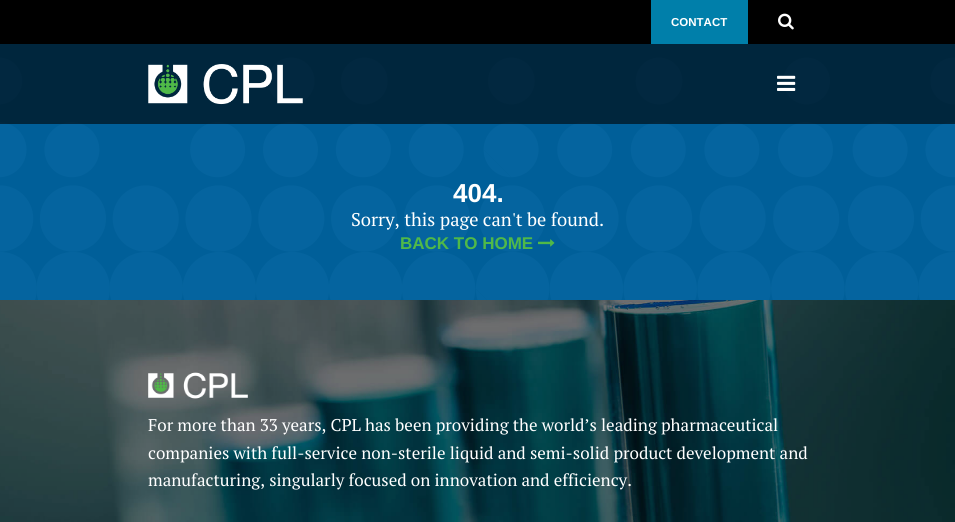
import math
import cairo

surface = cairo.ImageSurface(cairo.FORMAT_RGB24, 955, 522)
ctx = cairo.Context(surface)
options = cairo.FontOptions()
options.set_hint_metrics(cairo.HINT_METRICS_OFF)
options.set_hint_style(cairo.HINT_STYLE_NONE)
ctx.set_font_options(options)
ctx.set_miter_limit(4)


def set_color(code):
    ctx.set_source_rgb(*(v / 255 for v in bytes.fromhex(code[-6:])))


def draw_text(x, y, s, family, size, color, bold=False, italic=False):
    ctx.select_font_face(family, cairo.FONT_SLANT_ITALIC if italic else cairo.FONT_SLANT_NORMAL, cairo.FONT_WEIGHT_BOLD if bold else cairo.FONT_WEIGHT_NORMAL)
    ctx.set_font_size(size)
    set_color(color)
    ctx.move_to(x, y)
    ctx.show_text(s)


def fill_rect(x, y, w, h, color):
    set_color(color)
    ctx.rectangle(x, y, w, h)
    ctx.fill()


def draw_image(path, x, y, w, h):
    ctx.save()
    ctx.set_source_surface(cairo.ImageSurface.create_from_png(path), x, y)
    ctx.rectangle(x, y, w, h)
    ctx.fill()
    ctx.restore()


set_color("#005f99")
ctx.paint()
draw_image("assets/img4.png", 0, 57, 955, 243)
ctx.set_source_rgba(0, 0, 0, 0.6)
ctx.rectangle(0, 44, 955, 80)
ctx.fill()
fill_rect(0, 0, 955, 44, "#000000")
fill_rect(651, 0, 97, 44, "#007faa")
draw_text(671, 26, "CONTACT", "Liberation Sans", 11.5, "#ffffff", bold=True)
draw_image("assets/img1.png", 778, 13, 16, 17)
draw_image("assets/img2.png", 148, 64, 155, 41)
draw_image("assets/img3.png", 777, 75, 19, 16)
draw_text(453, 202, "404.", "Liberation Sans", 26, "#ffffff", bold=True)
draw_text(351, 226, "Sorry, this page can't be found.", "PT Serif", 18.4, "#ffffff")
draw_text(400, 249, "BACK TO HOME", "Liberation Sans", 17, "#50b948", bold=True)
draw_image("assets/img5.png", 538, 239, 17, 8)
draw_image("assets/img6.png", 0, 300, 955, 222)
draw_image("assets/img7.png", 148, 372, 100, 27)
draw_text(148, 431, "For more than 33 years, CPL has been providing the world’s leading pharmaceutical", "PT Serif", 17, "#ffffff")
draw_text(148, 459, "companies with full-service non-sterile liquid and semi-solid product development and", "PT Serif", 17, "#ffffff")
draw_text(148, 486, "manufacturing, singularly focused on innovation and efficiency.", "PT Serif", 17, "#ffffff")
surface.write_to_png("output.png")
